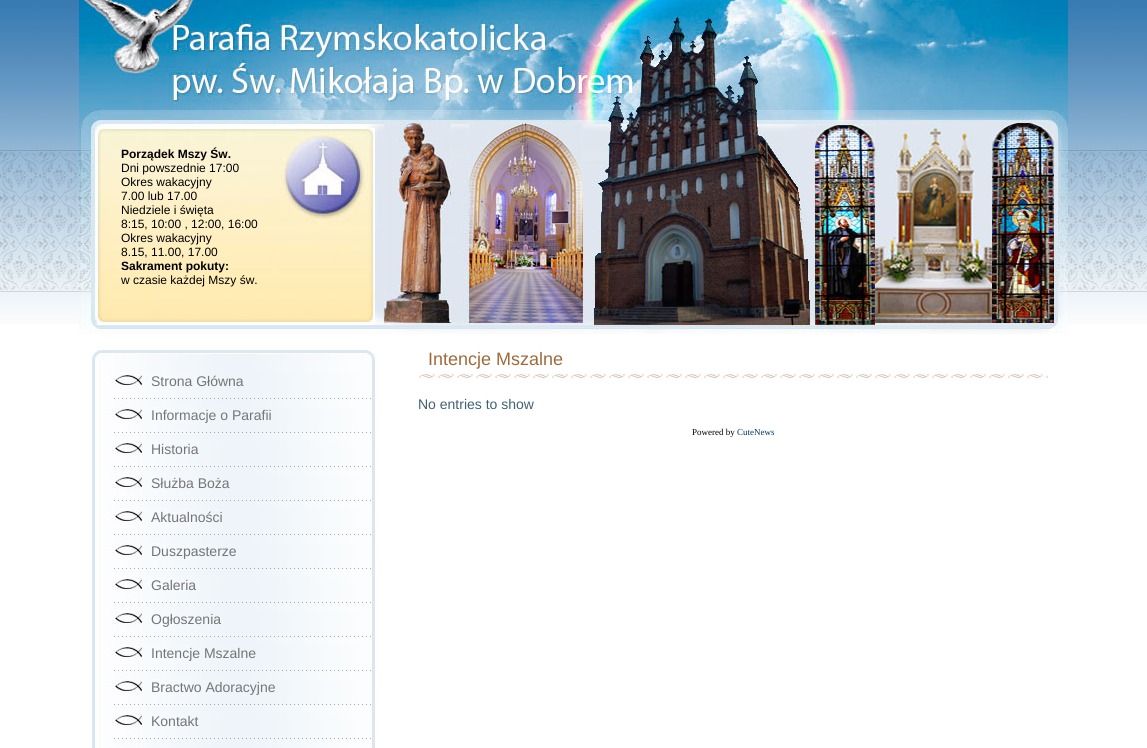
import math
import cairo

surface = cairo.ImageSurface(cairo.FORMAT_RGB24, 1147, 748)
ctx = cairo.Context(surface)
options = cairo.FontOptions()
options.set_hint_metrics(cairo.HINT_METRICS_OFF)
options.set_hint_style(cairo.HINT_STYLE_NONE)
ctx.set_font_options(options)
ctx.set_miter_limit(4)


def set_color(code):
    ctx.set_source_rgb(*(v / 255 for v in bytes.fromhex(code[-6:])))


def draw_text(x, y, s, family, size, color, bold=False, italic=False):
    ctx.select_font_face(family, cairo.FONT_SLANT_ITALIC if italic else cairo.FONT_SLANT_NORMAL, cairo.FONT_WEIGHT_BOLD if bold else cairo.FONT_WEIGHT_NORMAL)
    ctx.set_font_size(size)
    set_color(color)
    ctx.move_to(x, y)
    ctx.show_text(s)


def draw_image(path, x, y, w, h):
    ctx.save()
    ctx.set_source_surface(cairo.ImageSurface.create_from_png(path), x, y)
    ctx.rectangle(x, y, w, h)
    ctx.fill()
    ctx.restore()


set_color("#ffffff")
ctx.paint()
draw_image("assets/img1.png", 0, 0, 1147, 324)
draw_image("assets/img2.png", 79, 0, 989, 334)
draw_text(121, 158, "Porządek Mszy Św.", "Liberation Sans", 12, "#000000", bold=True)
draw_text(121, 172, "Dni powszednie 17:00", "Liberation Sans", 12, "#000000")
draw_text(121, 186, "Okres wakacyjny", "Liberation Sans", 12, "#000000")
draw_text(121, 200, "7.00 lub 17.00", "Liberation Sans", 12, "#000000")
draw_text(121, 214, "Niedziele i święta", "Liberation Sans", 12, "#000000")
draw_text(121, 228, "8:15, 10:00 , 12:00, 16:00", "Liberation Sans", 12, "#000000")
draw_text(121, 242, "Okres wakacyjny", "Liberation Sans", 12, "#000000")
draw_text(121, 256, "8.15, 11.00, 17.00", "Liberation Sans", 12, "#000000")
draw_text(121, 270, "Sakrament pokuty:", "Liberation Sans", 12, "#000000", bold=True)
draw_text(121, 284, "w czasie każdej Mszy św.", "Liberation Sans", 12, "#000000")
draw_image("assets/img3.png", 91, 345, 284, 15)
draw_image("assets/img4.png", 92, 360, 283, 388)
draw_image("assets/img5.png", 111, 373, 260, 26)
draw_text(151, 386, "Strona Główna", "Liberation Sans", 14, "#757575")
draw_image("assets/img5.png", 111, 407, 260, 26)
draw_text(151, 420, "Informacje o Parafii", "Liberation Sans", 14, "#757575")
draw_image("assets/img5.png", 111, 441, 260, 26)
draw_text(151, 454, "Historia", "Liberation Sans", 14, "#757575")
draw_image("assets/img5.png", 111, 475, 260, 26)
draw_text(151, 488, "Służba Boża", "Liberation Sans", 14, "#757575")
draw_image("assets/img5.png", 111, 509, 260, 26)
draw_text(151, 522, "Aktualności", "Liberation Sans", 14, "#757575")
draw_image("assets/img5.png", 111, 543, 260, 26)
draw_text(151, 556, "Duszpasterze", "Liberation Sans", 14, "#757575")
draw_image("assets/img5.png", 111, 577, 260, 26)
draw_text(151, 590, "Galeria", "Liberation Sans", 14, "#757575")
draw_image("assets/img5.png", 111, 611, 260, 26)
draw_text(151, 624, "Ogłoszenia", "Liberation Sans", 14, "#757575")
draw_image("assets/img5.png", 111, 645, 260, 26)
draw_text(151, 658, "Intencje Mszalne", "Liberation Sans", 14, "#757575")
draw_image("assets/img5.png", 111, 679, 260, 26)
draw_text(151, 692, "Bractwo Adoracyjne", "Liberation Sans", 14, "#757575")
draw_image("assets/img5.png", 111, 713, 260, 26)
draw_text(151, 726, "Kontakt", "Liberation Sans", 14, "#757575")
draw_image("assets/img6.png", 111, 747, 30, 1)
draw_image("assets/img7.png", 419, 373, 629, 7)
draw_text(428, 365, "Intencje Mszalne", "Liberation Sans", 18, "#9f6a3b")
draw_text(418, 409, "No entries to show", "Liberation Sans", 14, "#406173")
draw_text(692, 435, "Powered by", "Liberation Serif", 9, "#000000")
draw_text(737, 435, "CuteNews", "Liberation Serif", 9, "#003366")
surface.write_to_png("output.png")
